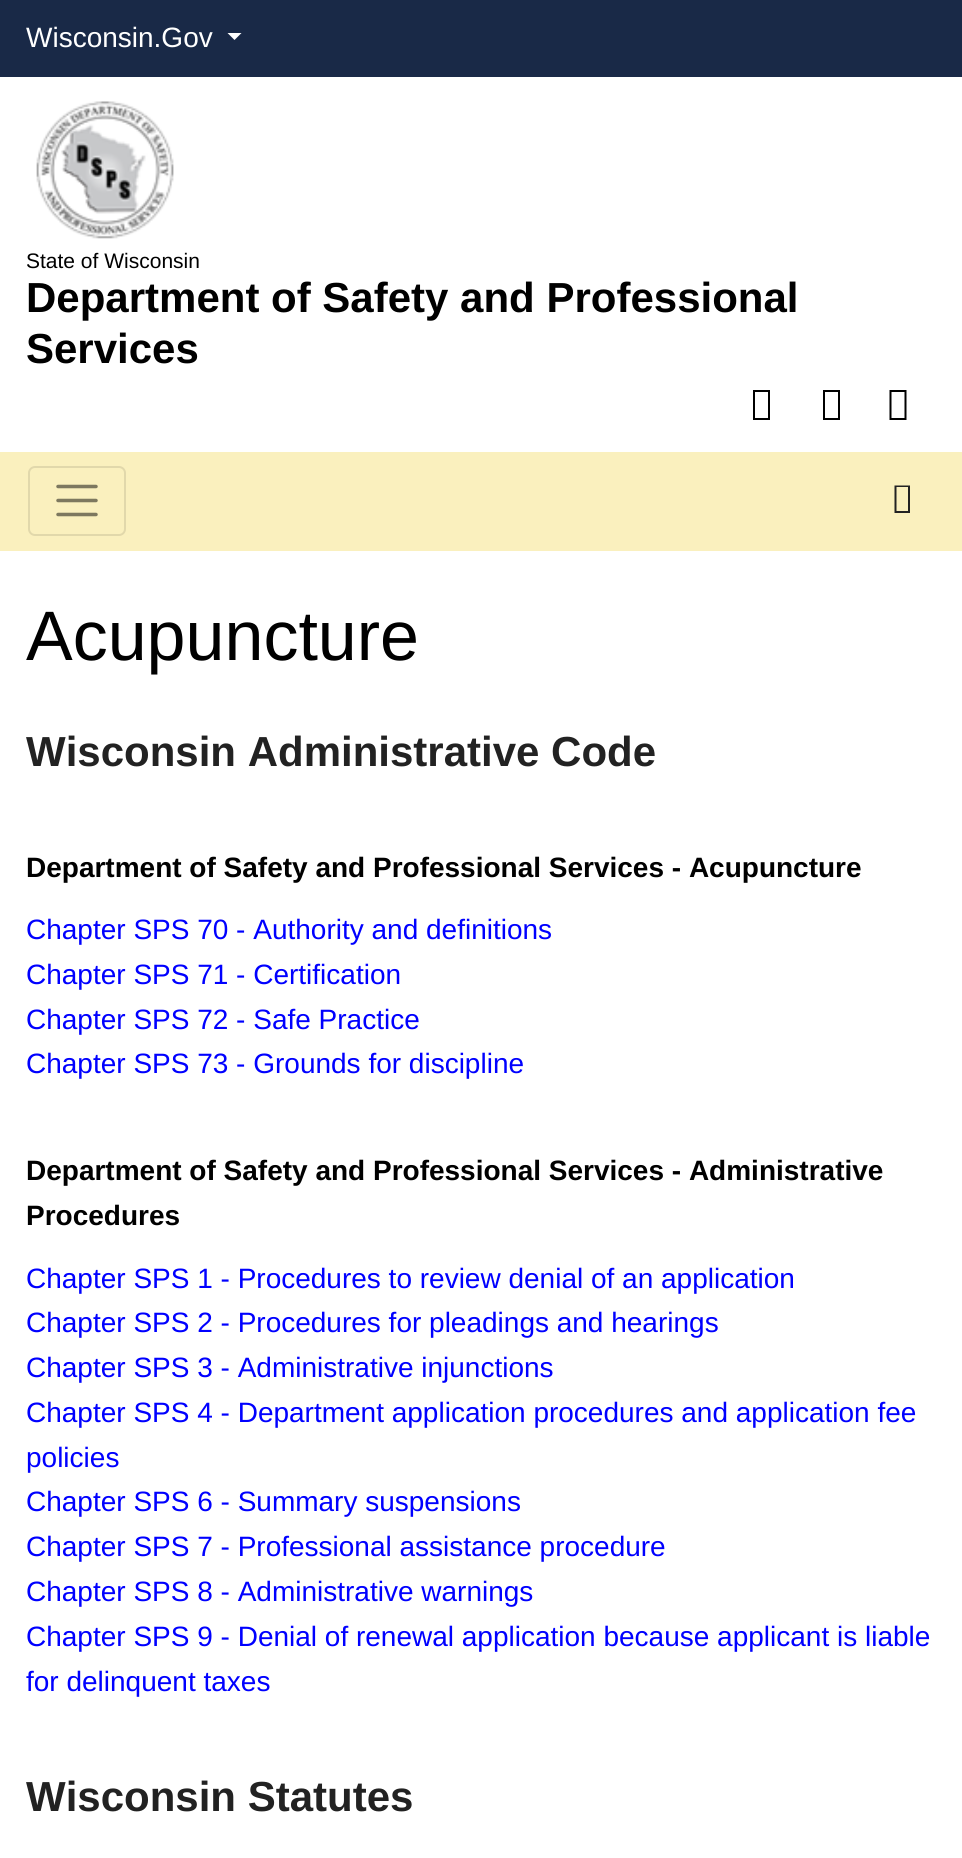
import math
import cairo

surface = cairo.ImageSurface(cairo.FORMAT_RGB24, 962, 1858)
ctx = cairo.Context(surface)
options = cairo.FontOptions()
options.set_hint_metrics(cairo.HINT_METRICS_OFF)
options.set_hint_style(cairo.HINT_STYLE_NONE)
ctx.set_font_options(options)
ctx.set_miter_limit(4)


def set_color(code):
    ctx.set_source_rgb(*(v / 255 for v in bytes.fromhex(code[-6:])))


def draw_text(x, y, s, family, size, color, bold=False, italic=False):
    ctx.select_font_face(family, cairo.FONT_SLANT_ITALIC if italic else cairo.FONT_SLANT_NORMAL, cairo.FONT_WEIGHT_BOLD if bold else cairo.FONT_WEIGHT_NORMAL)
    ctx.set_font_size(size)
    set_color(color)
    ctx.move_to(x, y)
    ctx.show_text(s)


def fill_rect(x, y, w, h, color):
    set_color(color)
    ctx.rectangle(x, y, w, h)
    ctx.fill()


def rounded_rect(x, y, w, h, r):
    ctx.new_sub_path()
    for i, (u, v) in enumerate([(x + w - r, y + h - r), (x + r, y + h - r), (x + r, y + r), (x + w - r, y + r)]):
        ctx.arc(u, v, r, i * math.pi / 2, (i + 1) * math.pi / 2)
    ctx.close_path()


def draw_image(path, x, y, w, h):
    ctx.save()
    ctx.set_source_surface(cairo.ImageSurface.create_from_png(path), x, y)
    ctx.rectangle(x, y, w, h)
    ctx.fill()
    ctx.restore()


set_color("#ffffff")
ctx.paint()
fill_rect(0, 0, 962, 77, "#192947")
draw_text(26, 47, "Wisconsin.Gov", "Liberation Sans", 28, "#ffffff")
ctx.new_path()
ctx.move_to(227.5, 33)
ctx.line_to(241.5, 33)
ctx.line_to(234.5, 40)
ctx.close_path()
ctx.fill()
draw_image("assets/img1.png", 36, 101, 138, 138)
draw_text(26, 268, "State of Wisconsin", "Liberation Sans", 21, "#000000")
draw_text(26, 312, "Department of Safety and Professional", "Liberation Sans", 42, "#000000", bold=True)
draw_text(26, 363, "Services", "Liberation Sans", 42, "#000000", bold=True)
ctx.new_path()
ctx.move_to(753, 420)
ctx.line_to(753, 390)
ctx.line_to(770, 390)
ctx.line_to(770, 420)
ctx.close_path()
ctx.move_to(755, 418)
ctx.line_to(768, 418)
ctx.line_to(768, 392)
ctx.line_to(755, 392)
ctx.close_path()
ctx.fill()
ctx.new_path()
ctx.move_to(823, 420)
ctx.line_to(823, 390)
ctx.line_to(840, 390)
ctx.line_to(840, 420)
ctx.close_path()
ctx.move_to(825, 418)
ctx.line_to(838, 418)
ctx.line_to(838, 392)
ctx.line_to(825, 392)
ctx.close_path()
ctx.fill()
ctx.new_path()
ctx.move_to(889.5, 420)
ctx.line_to(889.5, 390)
ctx.line_to(906.5, 390)
ctx.line_to(906.5, 420)
ctx.close_path()
ctx.move_to(891.5, 418)
ctx.line_to(904.5, 418)
ctx.line_to(904.5, 392)
ctx.line_to(891.5, 392)
ctx.close_path()
ctx.fill()
fill_rect(0, 452, 962, 99, "#faf0be")
rounded_rect(29, 467, 96, 68, 6)
set_color("#e1d8ab")
ctx.stroke()
ctx.new_path()
ctx.move_to(58, 486.5)
ctx.line_to(96, 486.5)
ctx.move_to(58, 500.5)
ctx.line_to(96, 500.5)
ctx.move_to(58, 514.5)
ctx.line_to(96, 514.5)
set_color("#7d785f")
ctx.set_line_width(3.5)
ctx.set_line_cap(cairo.LINE_CAP_ROUND)
ctx.stroke()
set_color("#222222")
ctx.new_path()
ctx.move_to(894.5, 513)
ctx.line_to(894.5, 485.5)
ctx.line_to(910, 485.5)
ctx.line_to(910, 513)
ctx.close_path()
ctx.move_to(896.5, 511)
ctx.line_to(908, 511)
ctx.line_to(908, 487)
ctx.line_to(896.5, 487)
ctx.close_path()
ctx.fill()
draw_text(26, 660, "Acupuncture", "Liberation Sans", 70, "#000000")
draw_text(26, 766, "Wisconsin Administrative Code", "Liberation Sans", 42, "#222222", bold=True)
draw_text(26, 877, "Department of Safety and Professional Services - Acupuncture", "Liberation Sans", 28, "#000000", bold=True)
draw_text(26, 939, "Chapter SPS 70 - Authority and definitions", "Liberation Sans", 28, "#0000ff")
draw_text(26, 984, "Chapter SPS 71 - Certification", "Liberation Sans", 28, "#0000ff")
draw_text(26, 1029, "Chapter SPS 72 - Safe Practice", "Liberation Sans", 28, "#0000ff")
draw_text(26, 1073, "Chapter SPS 73 - Grounds for discipline", "Liberation Sans", 28, "#0000ff")
draw_text(26, 1180, "Department of Safety and Professional Services - Administrative", "Liberation Sans", 28, "#000000", bold=True)
draw_text(26, 1225, "Procedures", "Liberation Sans", 28, "#000000", bold=True)
draw_text(26, 1288, "Chapter SPS 1 - Procedures to review denial of an application", "Liberation Sans", 28, "#0000ff")
draw_text(26, 1332, "Chapter SPS 2 - Procedures for pleadings and hearings", "Liberation Sans", 28, "#0000ff")
draw_text(26, 1377, "Chapter SPS 3 - Administrative injunctions", "Liberation Sans", 28, "#0000ff")
draw_text(26, 1422, "Chapter SPS 4 - Department application procedures and application fee", "Liberation Sans", 28, "#0000ff")
draw_text(26, 1467, "policies", "Liberation Sans", 28, "#0000ff")
draw_text(26, 1511, "Chapter SPS 6 - Summary suspensions", "Liberation Sans", 28, "#0000ff")
draw_text(26, 1556, "Chapter SPS 7 - Professional assistance procedure", "Liberation Sans", 28, "#0000ff")
draw_text(26, 1601, "Chapter SPS 8 - Administrative warnings", "Liberation Sans", 28, "#0000ff")
draw_text(26, 1646, "Chapter SPS 9 - Denial of renewal application because applicant is liable", "Liberation Sans", 28, "#0000ff")
draw_text(26, 1691, "for delinquent taxes", "Liberation Sans", 28, "#0000ff")
draw_text(26, 1811, "Wisconsin Statutes", "Liberation Sans", 42, "#222222", bold=True)
surface.write_to_png("output.png")
